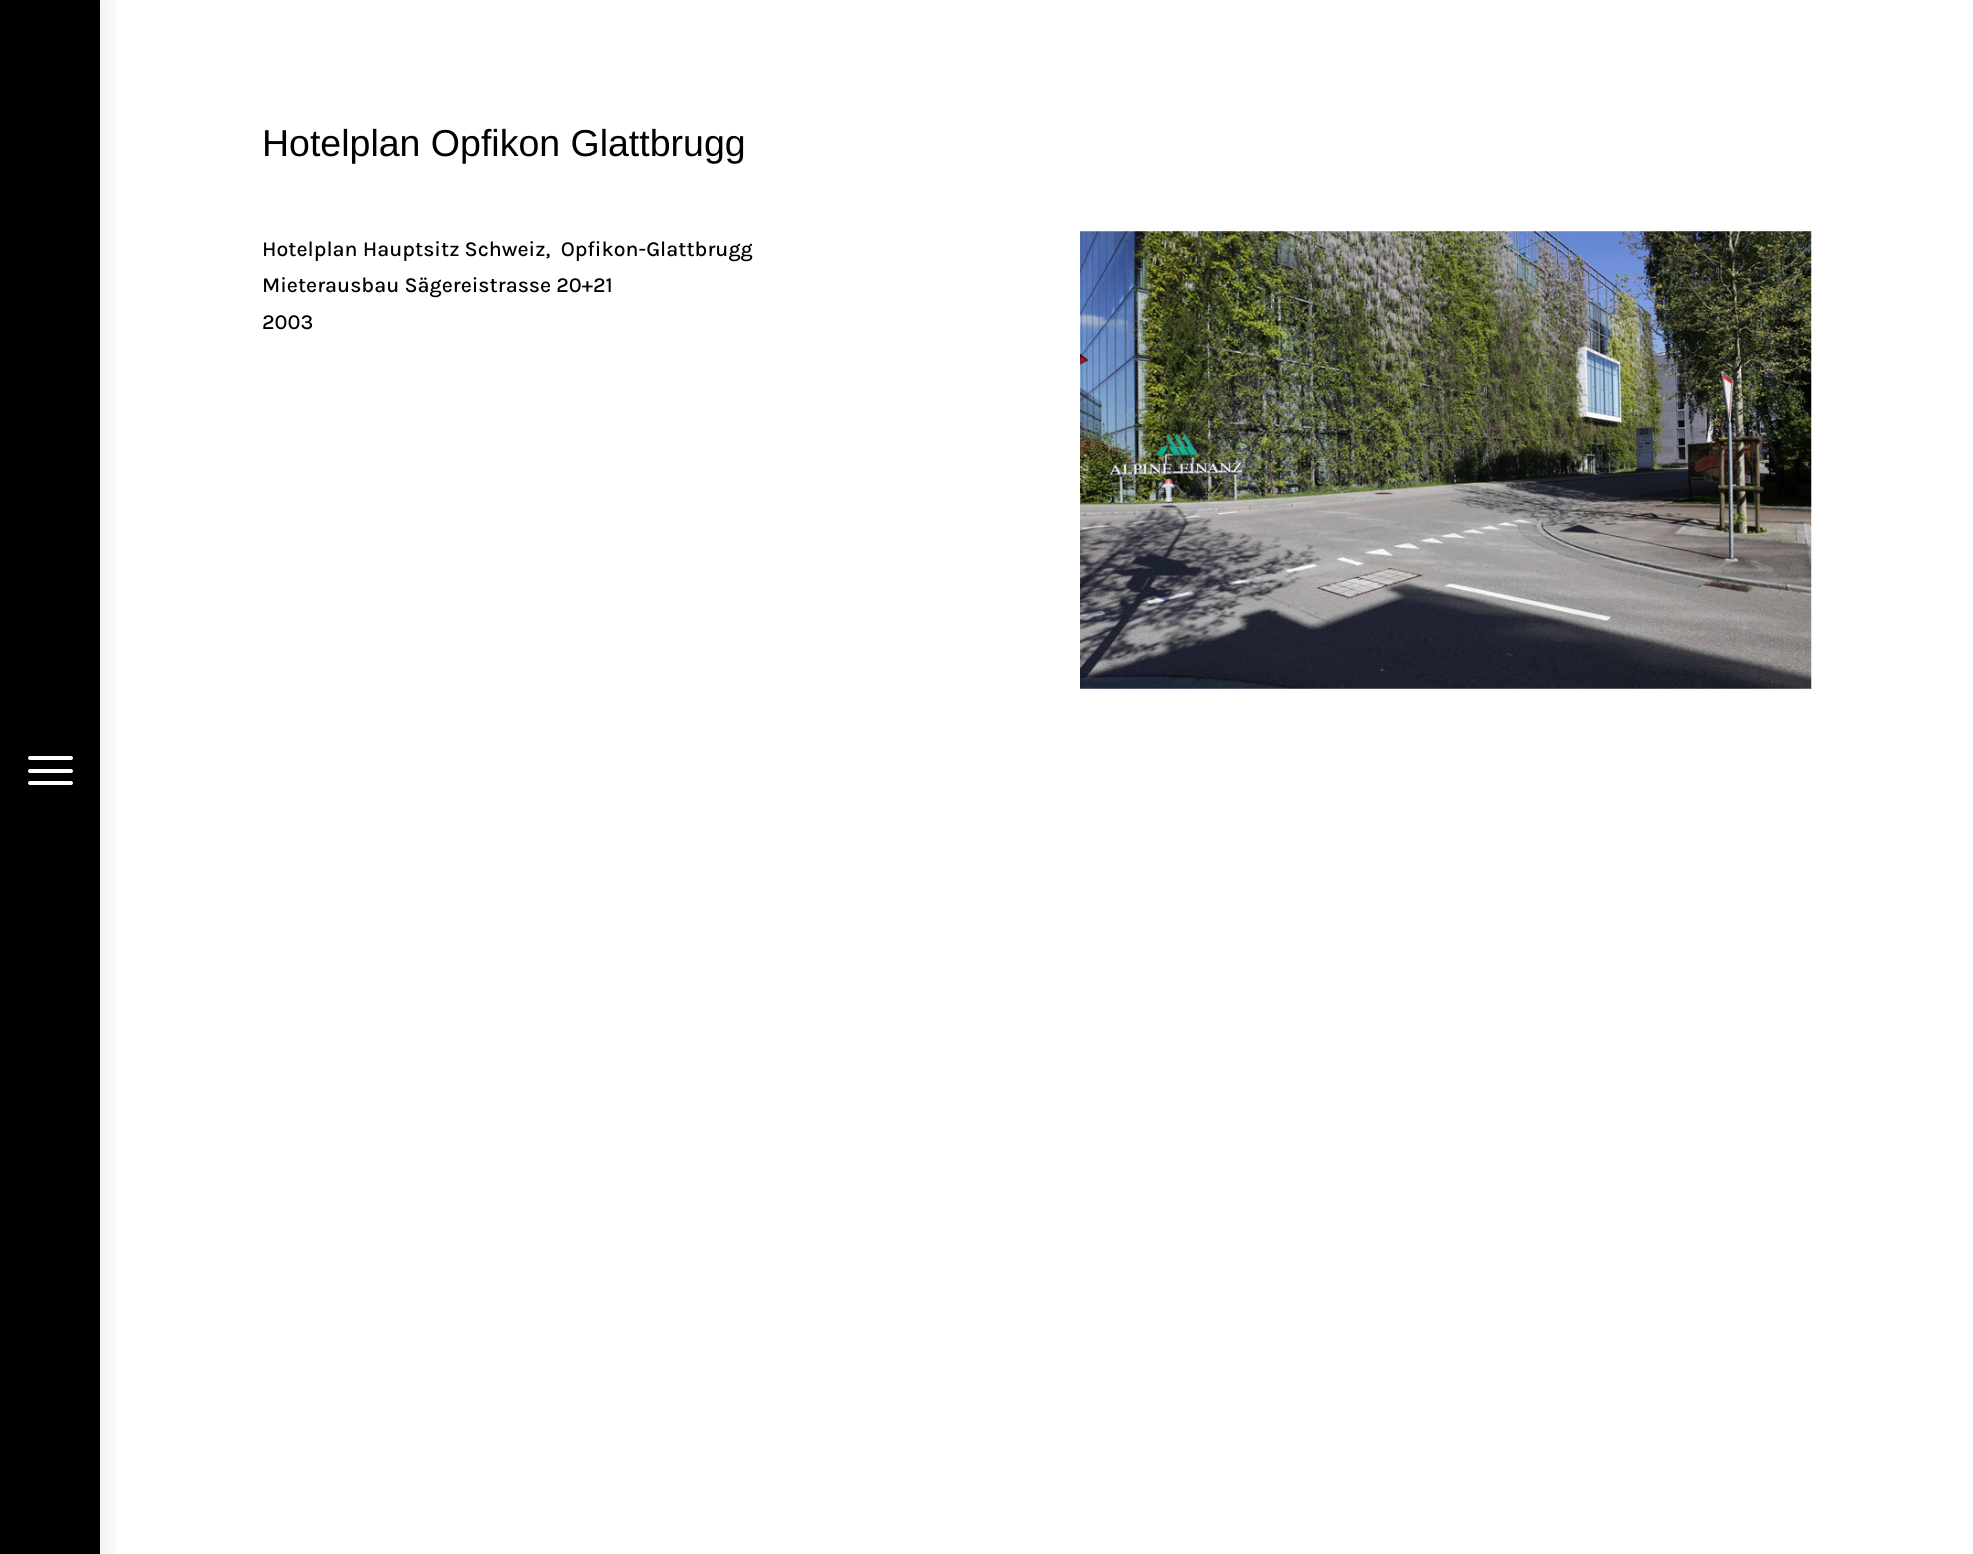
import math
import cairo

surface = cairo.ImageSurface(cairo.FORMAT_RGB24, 1973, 1554)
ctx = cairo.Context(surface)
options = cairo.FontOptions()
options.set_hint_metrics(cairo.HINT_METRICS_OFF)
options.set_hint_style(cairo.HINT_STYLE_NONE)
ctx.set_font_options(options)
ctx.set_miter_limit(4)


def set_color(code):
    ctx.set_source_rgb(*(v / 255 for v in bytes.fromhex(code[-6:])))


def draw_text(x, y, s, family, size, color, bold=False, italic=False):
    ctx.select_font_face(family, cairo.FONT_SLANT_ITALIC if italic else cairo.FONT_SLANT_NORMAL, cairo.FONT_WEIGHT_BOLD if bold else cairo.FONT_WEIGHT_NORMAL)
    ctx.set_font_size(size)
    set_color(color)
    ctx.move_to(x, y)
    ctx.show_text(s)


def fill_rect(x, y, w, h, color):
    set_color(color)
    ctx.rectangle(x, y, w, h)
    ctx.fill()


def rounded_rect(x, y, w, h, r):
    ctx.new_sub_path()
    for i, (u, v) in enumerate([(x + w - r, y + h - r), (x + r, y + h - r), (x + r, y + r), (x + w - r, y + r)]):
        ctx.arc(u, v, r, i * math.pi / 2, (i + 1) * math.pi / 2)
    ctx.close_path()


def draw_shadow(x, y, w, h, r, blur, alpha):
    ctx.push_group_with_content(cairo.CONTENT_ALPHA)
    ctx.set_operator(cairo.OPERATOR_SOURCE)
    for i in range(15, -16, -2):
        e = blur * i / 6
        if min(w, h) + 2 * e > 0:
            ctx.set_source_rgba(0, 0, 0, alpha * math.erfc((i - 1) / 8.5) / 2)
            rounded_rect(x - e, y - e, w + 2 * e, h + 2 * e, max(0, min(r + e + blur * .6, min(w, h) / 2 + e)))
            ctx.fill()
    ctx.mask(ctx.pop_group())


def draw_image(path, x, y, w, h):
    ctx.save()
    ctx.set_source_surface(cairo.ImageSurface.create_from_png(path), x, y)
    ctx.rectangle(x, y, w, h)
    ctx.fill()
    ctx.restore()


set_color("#ffffff")
ctx.paint()
fill_rect(0, 0, 100, 1554, "#000000")
ctx.save()
ctx.rectangle(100, 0, 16, 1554)
ctx.clip()
set_color("#000000")
draw_shadow(0, 3, 100, 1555, 0, 19, 0.1)
ctx.restore()
set_color("#ffffff")
rounded_rect(28, 756, 45, 4, 2)
ctx.fill()
rounded_rect(28, 769, 45, 4, 2)
ctx.fill()
rounded_rect(28, 781, 45, 4, 2)
ctx.fill()
draw_text(262, 156, "Hotelplan Opfikon Glattbrugg", "Liberation Sans", 37.5, "#000000")
draw_text(262, 256, "Hotelplan Hauptsitz Schweiz,  Opfikon-Glattbrugg", "Karla Medium", 21.25, "#000000")
draw_text(262, 292, "Mieterausbau Sägereistrasse 20+21", "Karla Medium", 21.25, "#000000")
draw_text(262, 329, "2003", "Karla Medium", 21.25, "#000000")
draw_image("assets/img1.png", 1080, 231, 732, 458)
surface.write_to_png("output.png")
